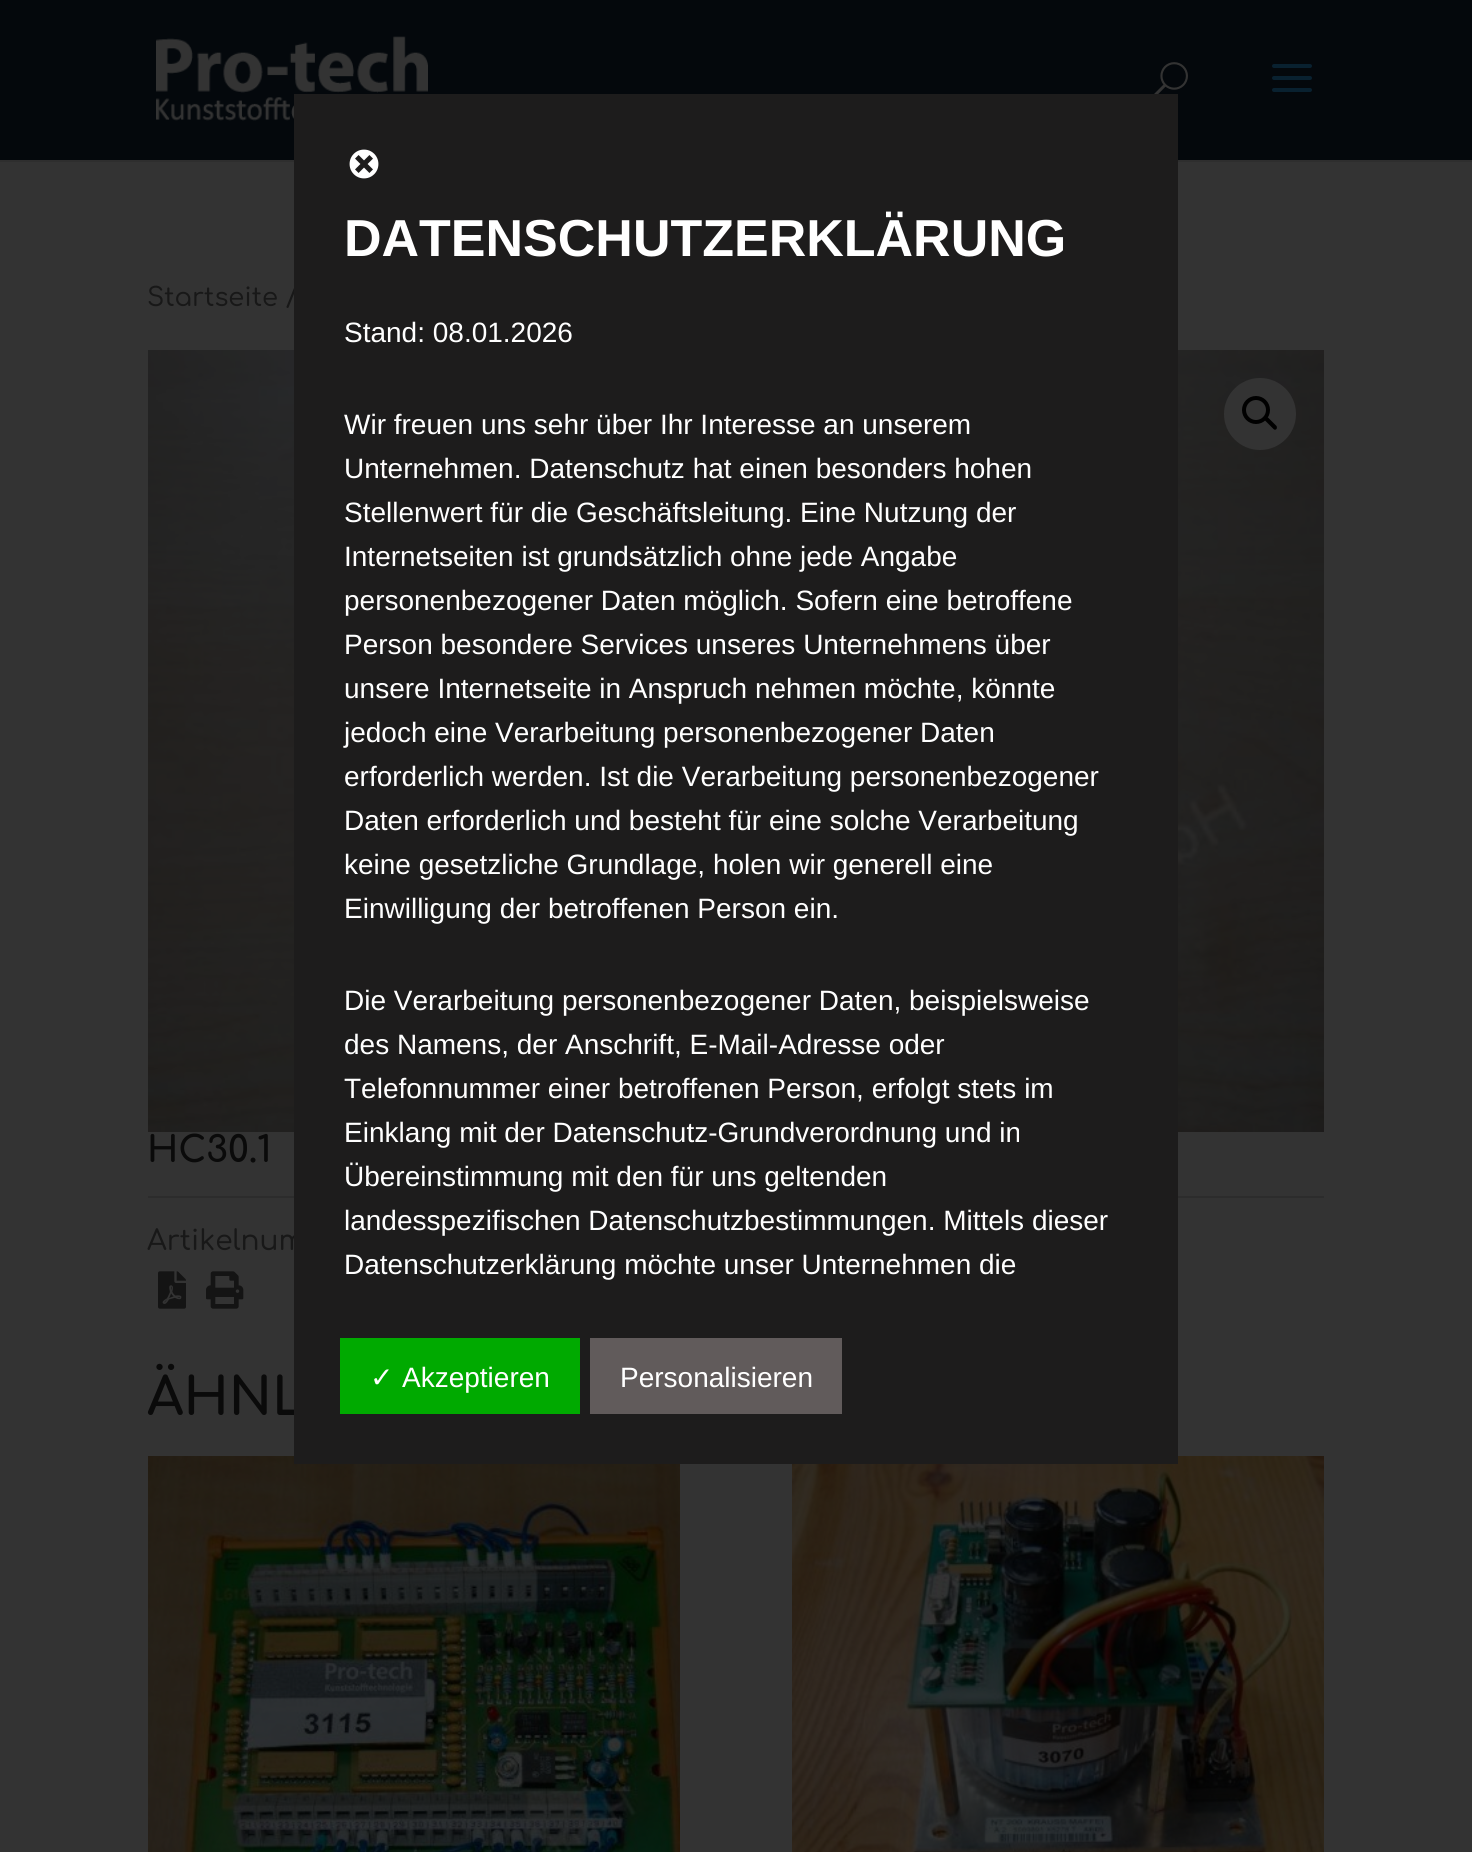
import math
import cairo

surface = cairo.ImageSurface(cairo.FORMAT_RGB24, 1472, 1852)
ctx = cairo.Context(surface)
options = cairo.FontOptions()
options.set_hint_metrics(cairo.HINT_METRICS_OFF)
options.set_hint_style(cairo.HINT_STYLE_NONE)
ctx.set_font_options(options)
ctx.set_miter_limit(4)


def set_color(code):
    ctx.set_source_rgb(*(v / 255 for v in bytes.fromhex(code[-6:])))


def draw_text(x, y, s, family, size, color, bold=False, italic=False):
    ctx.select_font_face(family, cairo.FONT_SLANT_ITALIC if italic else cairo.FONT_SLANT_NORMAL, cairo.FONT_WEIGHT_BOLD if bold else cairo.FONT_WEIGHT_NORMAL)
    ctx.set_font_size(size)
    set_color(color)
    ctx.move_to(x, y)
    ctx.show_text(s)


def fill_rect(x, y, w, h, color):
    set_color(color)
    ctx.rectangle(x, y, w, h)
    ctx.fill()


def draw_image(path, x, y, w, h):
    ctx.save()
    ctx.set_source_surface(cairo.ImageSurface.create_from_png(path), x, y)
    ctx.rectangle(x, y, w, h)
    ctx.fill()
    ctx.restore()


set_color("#333333")
ctx.paint()
fill_rect(0, 160, 1472, 2, "#2e2e2e")
fill_rect(0, 0, 1472, 160, "#04080c")
draw_image("assets/img1.png", 156, 36, 272, 85)
draw_image("assets/img2.png", 1154, 62, 34, 32)
draw_image("assets/img3.png", 1272, 64, 40, 28)
draw_text(147, 306, "Startseite /", "Comfortaa Medium", 25.75, "#181818")
draw_image("assets/img4.png", 148, 350, 1176, 782)
set_color("#333333")
ctx.arc(1260, 414, 36, 0, 2 * math.pi)
ctx.fill()
ctx.arc(1256, 410, 12, 0, 2 * math.pi)
set_color("#000000")
ctx.set_line_width(4)
ctx.stroke()
ctx.new_path()
ctx.move_to(1265, 417.5)
ctx.curve_to(1266, 417, 1267, 417, 1268, 417.5)
ctx.line_to(1276.5, 426)
ctx.curve_to(1277, 427, 1277, 428, 1276.5, 429)
ctx.curve_to(1275.5, 430, 1274.5, 430, 1273.5, 429)
ctx.line_to(1265, 420.5)
ctx.curve_to(1264.5, 419.5, 1264.5, 418.5, 1265, 417.5)
ctx.close_path()
ctx.fill()
draw_text(147, 1162, "HC30.1", "Comfortaa", 36, "#0a0a0a", bold=True)
fill_rect(148, 1196, 1176, 2, "#2c2c2c")
draw_text(147, 1250, "Artikelnum", "Comfortaa Medium", 28, "#181818")
draw_image("assets/img5.png", 158, 1271, 28, 38)
draw_image("assets/img6.png", 206, 1271, 38, 38)
draw_text(147, 1415, "ÄHNL", "Comfortaa", 52, "#0a0a0a", bold=True)
draw_image("assets/img7.png", 148, 1456, 532, 396)
draw_image("assets/img8.png", 792, 1456, 532, 396)
fill_rect(294, 94, 884, 1370, "#1d1c1c")
draw_image("assets/img9.png", 349, 149, 30, 30)
draw_text(344, 256, "DATENSCHUTZERKLÄRUNG", "Liberation Sans", 52, "#ffffff", bold=True)
draw_text(344, 342, "Stand: 08.01.2026", "Liberation Sans", 28, "#ffffff")
draw_text(344, 434, "Wir freuen uns sehr über Ihr Interesse an unserem", "Liberation Sans", 28, "#ffffff")
draw_text(344, 478, "Unternehmen. Datenschutz hat einen besonders hohen", "Liberation Sans", 28, "#ffffff")
draw_text(344, 522, "Stellenwert für die Geschäftsleitung. Eine Nutzung der", "Liberation Sans", 28, "#ffffff")
draw_text(344, 566, "Internetseiten ist grundsätzlich ohne jede Angabe", "Liberation Sans", 28, "#ffffff")
draw_text(344, 610, "personenbezogener Daten möglich. Sofern eine betroffene", "Liberation Sans", 28, "#ffffff")
draw_text(344, 654, "Person besondere Services unseres Unternehmens über", "Liberation Sans", 28, "#ffffff")
draw_text(344, 698, "unsere Internetseite in Anspruch nehmen möchte, könnte", "Liberation Sans", 28, "#ffffff")
draw_text(344, 742, "jedoch eine Verarbeitung personenbezogener Daten", "Liberation Sans", 28, "#ffffff")
draw_text(344, 786, "erforderlich werden. Ist die Verarbeitung personenbezogener", "Liberation Sans", 28, "#ffffff")
draw_text(344, 830, "Daten erforderlich und besteht für eine solche Verarbeitung", "Liberation Sans", 28, "#ffffff")
draw_text(344, 874, "keine gesetzliche Grundlage, holen wir generell eine", "Liberation Sans", 28, "#ffffff")
draw_text(344, 918, "Einwilligung der betroffenen Person ein.", "Liberation Sans", 28, "#ffffff")
draw_text(344, 1010, "Die Verarbeitung personenbezogener Daten, beispielsweise", "Liberation Sans", 28, "#ffffff")
draw_text(344, 1054, "des Namens, der Anschrift, E-Mail-Adresse oder", "Liberation Sans", 28, "#ffffff")
draw_text(344, 1098, "Telefonnummer einer betroffenen Person, erfolgt stets im", "Liberation Sans", 28, "#ffffff")
draw_text(344, 1142, "Einklang mit der Datenschutz-Grundverordnung und in", "Liberation Sans", 28, "#ffffff")
draw_text(344, 1186, "Übereinstimmung mit den für uns geltenden", "Liberation Sans", 28, "#ffffff")
draw_text(344, 1230, "landesspezifischen Datenschutzbestimmungen. Mittels dieser", "Liberation Sans", 28, "#ffffff")
draw_text(344, 1274, "Datenschutzerklärung möchte unser Unternehmen die", "Liberation Sans", 28, "#ffffff")
fill_rect(340, 1338, 240, 76, "#00aa00")
draw_text(370, 1387, "✓", "DejaVu Sans", 28, "#ffffff")
draw_text(402, 1387, "Akzeptieren", "Liberation Sans", 28, "#ffffff")
fill_rect(590, 1338, 252, 76, "#615b5b")
draw_text(620, 1387, "Personalisieren", "Liberation Sans", 28, "#ffffff")
surface.write_to_png("output.png")
